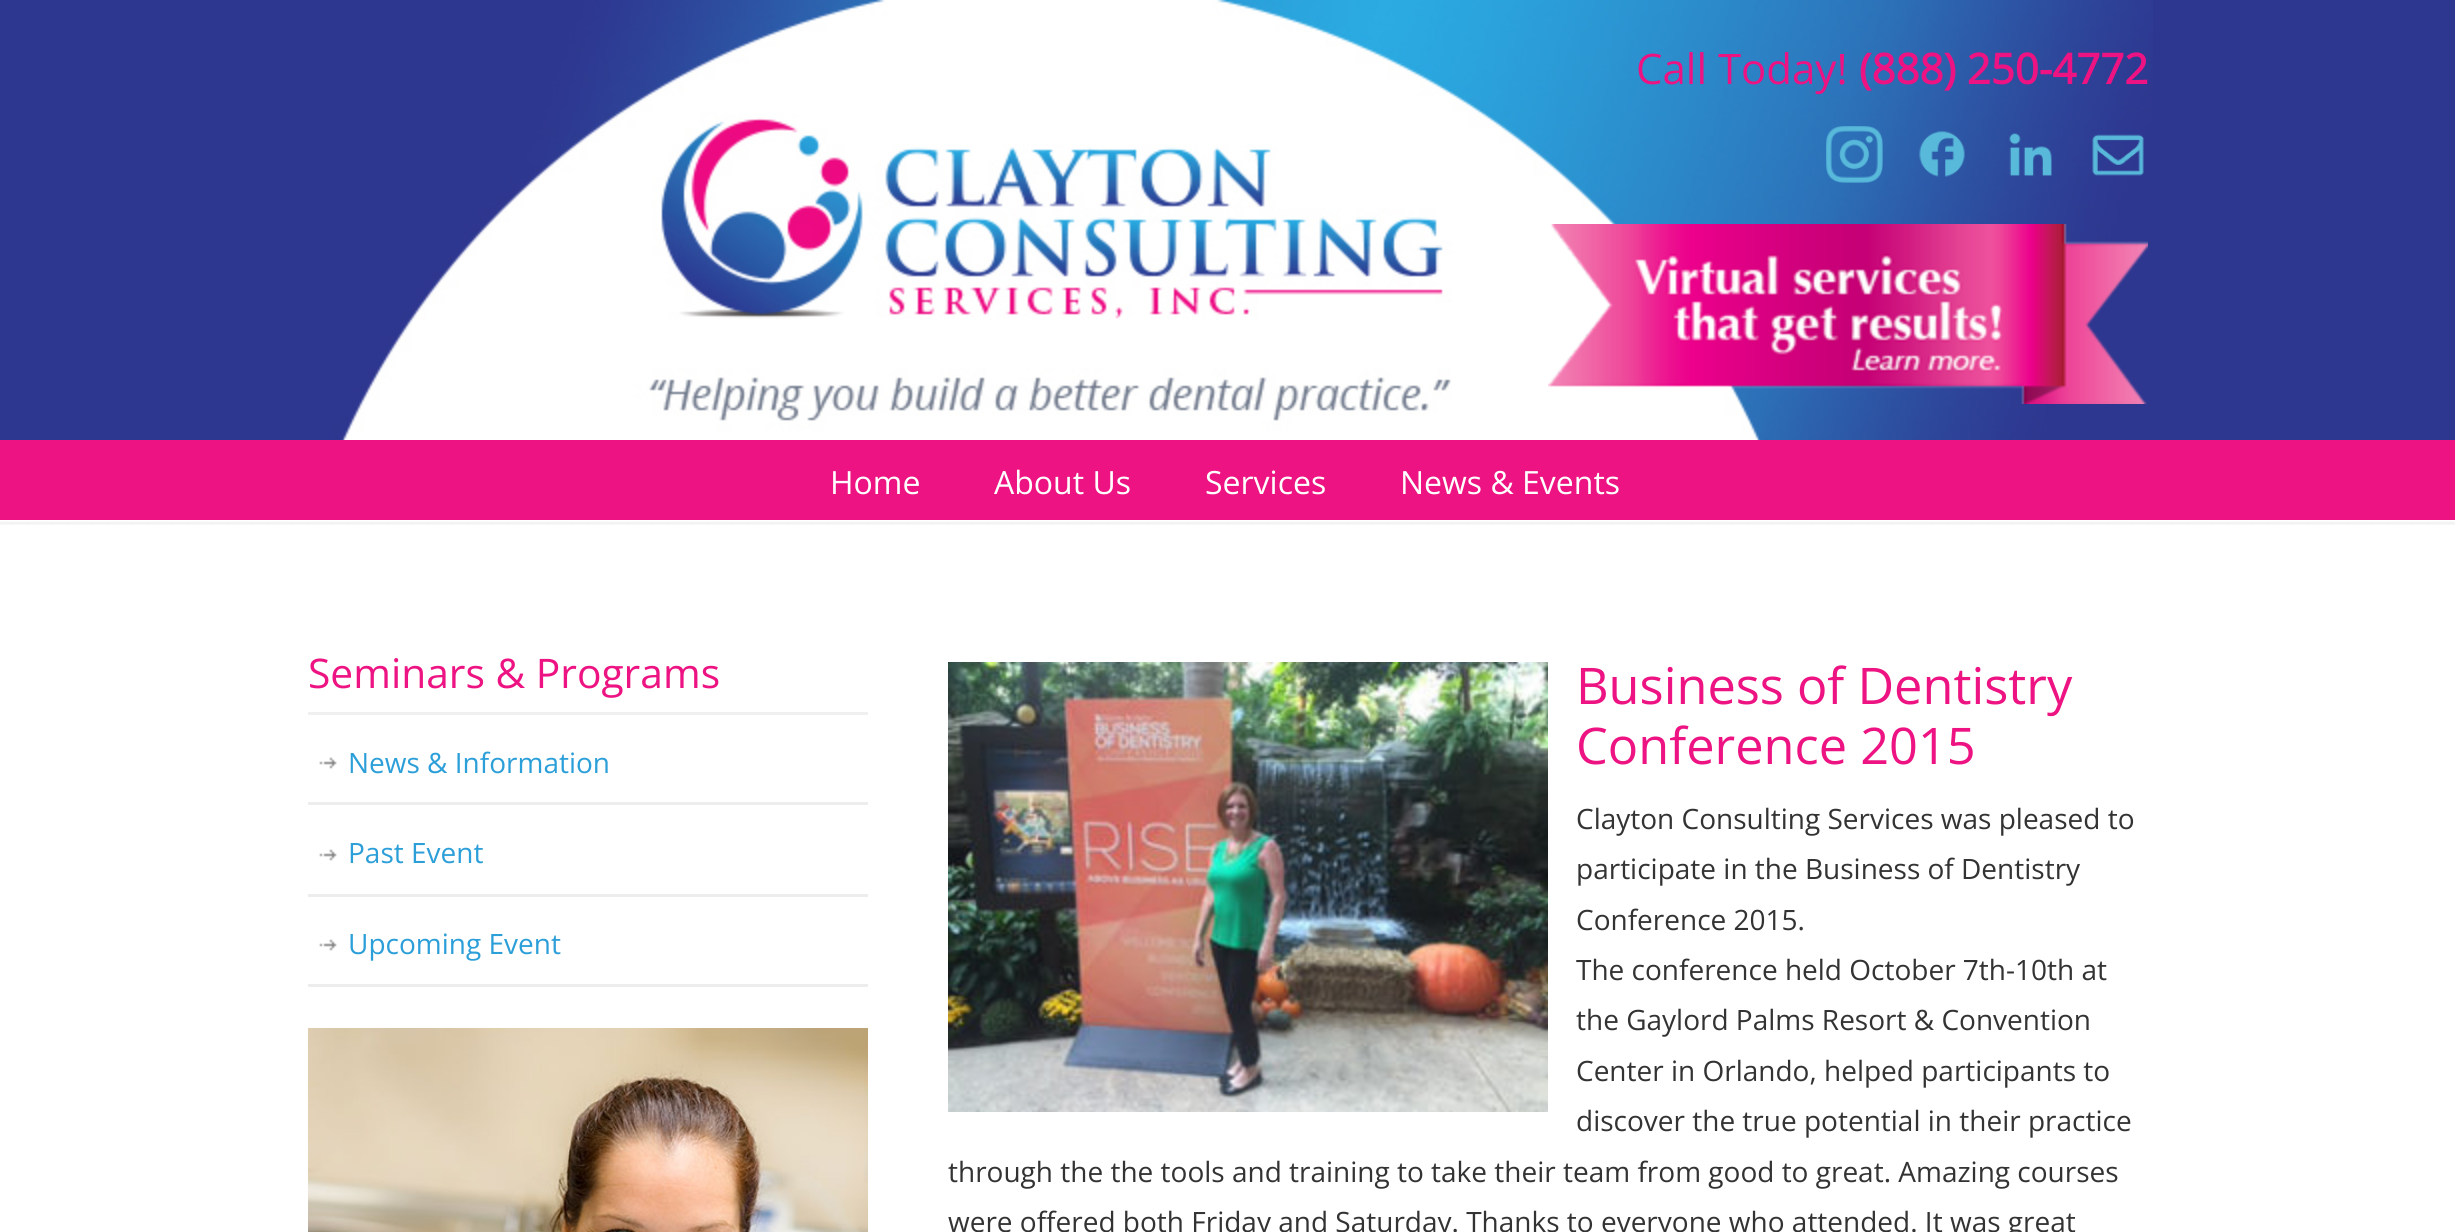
import math
import cairo

surface = cairo.ImageSurface(cairo.FORMAT_RGB24, 2455, 1232)
ctx = cairo.Context(surface)
options = cairo.FontOptions()
options.set_hint_metrics(cairo.HINT_METRICS_OFF)
options.set_hint_style(cairo.HINT_STYLE_NONE)
ctx.set_font_options(options)
ctx.set_miter_limit(4)


def set_color(code):
    ctx.set_source_rgb(*(v / 255 for v in bytes.fromhex(code[-6:])))


def draw_text(x, y, s, family, size, color, bold=False, italic=False):
    ctx.select_font_face(family, cairo.FONT_SLANT_ITALIC if italic else cairo.FONT_SLANT_NORMAL, cairo.FONT_WEIGHT_BOLD if bold else cairo.FONT_WEIGHT_NORMAL)
    ctx.set_font_size(size)
    set_color(color)
    ctx.move_to(x, y)
    ctx.show_text(s)


def fill_rect(x, y, w, h, color):
    set_color(color)
    ctx.rectangle(x, y, w, h)
    ctx.fill()


def draw_image(path, x, y, w, h):
    ctx.save()
    ctx.set_source_surface(cairo.ImageSurface.create_from_png(path), x, y)
    ctx.rectangle(x, y, w, h)
    ctx.fill()
    ctx.restore()


set_color("#ffffff")
ctx.paint()
fill_rect(0, 0, 2455, 440, "#2e378f")
draw_image("assets/img1.png", 311, 0, 1842, 440)
draw_text(1636, 84, "Call Today!", "Open Sans", 42, "#ed1382")
draw_text(1859, 84, "(888) 250-4772", "Open Sans", 42, "#ed1382", bold=True)
draw_image("assets/img2.png", 1826, 126, 57, 57)
draw_image("assets/img3.png", 1919, 131, 46, 46)
draw_image("assets/img4.png", 2009, 133, 43, 43)
draw_image("assets/img5.png", 2092, 134, 52, 42)
draw_image("assets/img6.png", 1548, 224, 600, 180)
fill_rect(0, 440, 2455, 80, "#ed1382")
draw_text(830, 494, "Home", "Open Sans", 32, "#ffffff")
draw_text(994, 494, "About Us", "Open Sans", 32, "#ffffff")
draw_text(1205, 494, "Services", "Open Sans", 32, "#ffffff")
draw_text(1400, 494, "News & Events", "Open Sans", 32, "#ffffff")
draw_image("assets/img7.png", 0, 521, 2455, 4)
fill_rect(308, 712, 560, 3, "#f0f0f0")
draw_text(308, 688, "Seminars & Programs", "Open Sans", 40.75, "#ed1382")
fill_rect(308, 802, 560, 3, "#ededed")
draw_image("assets/img8.png", 319, 757, 18, 12)
draw_text(348, 773, "News & Information", "Open Sans", 28, "#2c9fd9")
fill_rect(308, 894, 560, 3, "#ededed")
draw_image("assets/img8.png", 319, 849, 18, 12)
draw_text(348, 863, "Past Event", "Open Sans", 28, "#2c9fd9")
fill_rect(308, 984, 560, 3, "#ededed")
draw_image("assets/img8.png", 319, 939, 18, 12)
draw_text(348, 954, "Upcoming Event", "Open Sans", 28, "#2c9fd9")
draw_image("assets/img9.png", 308, 1028, 560, 204)
draw_image("assets/img10.png", 948, 662, 600, 450)
draw_text(1576, 704, "Business of Dentistry", "Open Sans", 50.5, "#ed1382")
draw_text(1576, 764, "Conference 2015", "Open Sans", 50.5, "#ed1382")
draw_text(1576, 829, "Clayton Consulting Services was pleased to", "Open Sans", 28, "#333333")
draw_text(1576, 879, "participate in the Business of Dentistry", "Open Sans", 28, "#333333")
draw_text(1576, 930, "Conference 2015.", "Open Sans", 28, "#333333")
draw_text(1576, 980, "The conference held October 7th-10th at", "Open Sans", 28, "#333333")
draw_text(1576, 1030, "the Gaylord Palms Resort & Convention", "Open Sans", 28, "#333333")
draw_text(1576, 1081, "Center in Orlando, helped participants to", "Open Sans", 28, "#333333")
draw_text(1576, 1131, "discover the true potential in their practice", "Open Sans", 28, "#333333")
draw_text(948, 1182, "through the the tools and training to take their team from good to great. Amazing courses", "Open Sans", 28, "#333333")
draw_text(948, 1232, "were offered both Friday and Saturday. Thanks to everyone who attended. It was great", "Open Sans", 28, "#333333")
surface.write_to_png("output.png")
